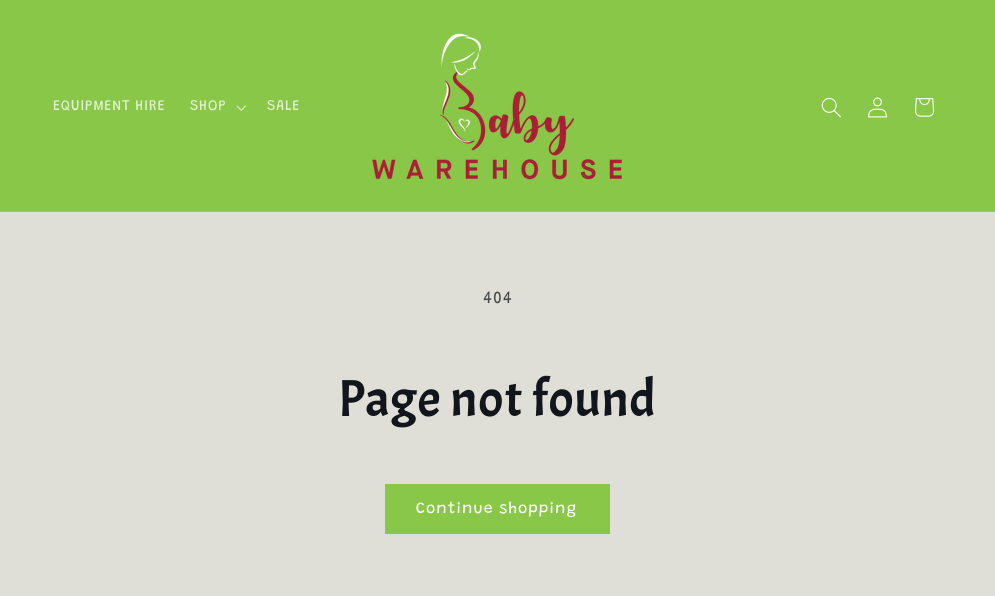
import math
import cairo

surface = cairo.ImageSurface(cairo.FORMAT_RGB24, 995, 596)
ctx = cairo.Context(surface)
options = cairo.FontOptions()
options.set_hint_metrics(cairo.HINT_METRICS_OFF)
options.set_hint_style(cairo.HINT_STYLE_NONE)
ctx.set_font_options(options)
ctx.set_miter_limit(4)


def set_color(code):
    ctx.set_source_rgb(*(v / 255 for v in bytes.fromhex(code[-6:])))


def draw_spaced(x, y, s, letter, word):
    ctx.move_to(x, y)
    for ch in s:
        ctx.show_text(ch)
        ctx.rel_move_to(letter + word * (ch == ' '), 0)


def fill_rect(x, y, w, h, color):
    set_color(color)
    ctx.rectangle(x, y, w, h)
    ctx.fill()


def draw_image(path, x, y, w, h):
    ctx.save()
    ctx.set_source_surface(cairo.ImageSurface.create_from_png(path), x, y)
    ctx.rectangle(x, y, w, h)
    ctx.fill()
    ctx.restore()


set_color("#dfdfd8")
ctx.paint()
fill_rect(0, 0, 995, 211, "#89c748")
fill_rect(0, 211, 995, 1, "#92cb57")
ctx.select_font_face("Grandstander")
ctx.set_font_size(14.75)
set_color("#e2f1d1")
draw_spaced(53, 110, "EQUIPMENT HIRE", 0.6, 0)
draw_spaced(190, 110, "SHOP", 0.6, 0)
draw_image("assets/img1.png", 236, 105, 10, 6)
draw_spaced(267, 110, "SALE", 0.6, 0)
draw_image("assets/img2.png", 372, 33, 250, 147)
draw_image("assets/img3.png", 821, 97, 20, 21)
draw_image("assets/img4.png", 868, 97, 19, 21)
draw_image("assets/img5.png", 915, 98, 20, 19)
ctx.set_font_size(17)
set_color("#45484b")
draw_spaced(483, 303, "404", 0.6, 0)
ctx.select_font_face("Acme")
ctx.set_font_size(52)
set_color("#11151c")
draw_spaced(338, 416, "Page not found", 0.75, 0)
fill_rect(385, 484, 225, 50, "#89c748")
ctx.select_font_face("Grandstander")
ctx.set_font_size(15.75)
set_color("#ffffff")
draw_spaced(416, 513, "Continue shopping", 1, 0)
surface.write_to_png("output.png")
